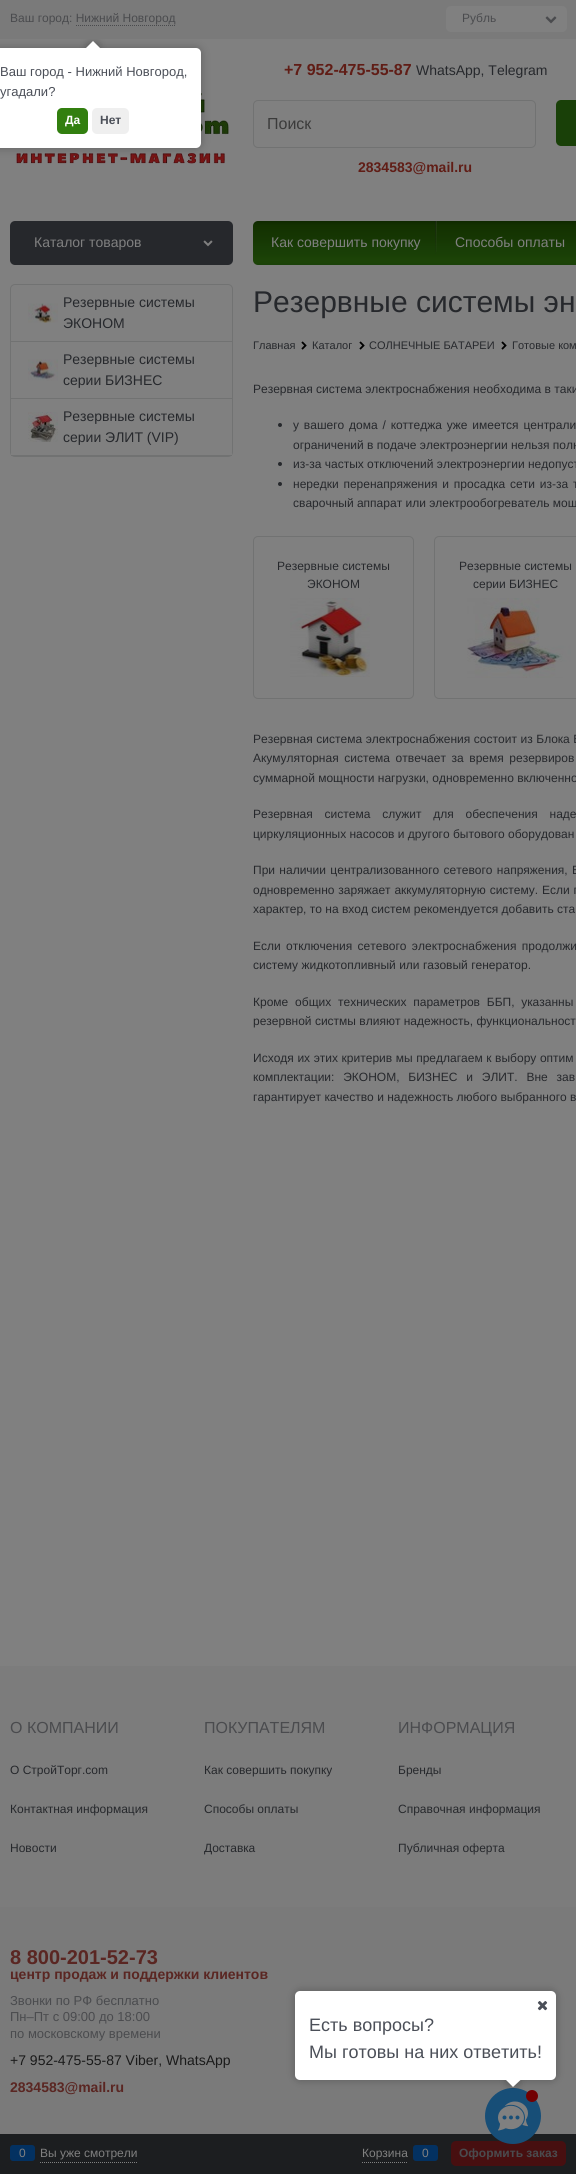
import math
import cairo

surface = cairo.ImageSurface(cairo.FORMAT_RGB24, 576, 2174)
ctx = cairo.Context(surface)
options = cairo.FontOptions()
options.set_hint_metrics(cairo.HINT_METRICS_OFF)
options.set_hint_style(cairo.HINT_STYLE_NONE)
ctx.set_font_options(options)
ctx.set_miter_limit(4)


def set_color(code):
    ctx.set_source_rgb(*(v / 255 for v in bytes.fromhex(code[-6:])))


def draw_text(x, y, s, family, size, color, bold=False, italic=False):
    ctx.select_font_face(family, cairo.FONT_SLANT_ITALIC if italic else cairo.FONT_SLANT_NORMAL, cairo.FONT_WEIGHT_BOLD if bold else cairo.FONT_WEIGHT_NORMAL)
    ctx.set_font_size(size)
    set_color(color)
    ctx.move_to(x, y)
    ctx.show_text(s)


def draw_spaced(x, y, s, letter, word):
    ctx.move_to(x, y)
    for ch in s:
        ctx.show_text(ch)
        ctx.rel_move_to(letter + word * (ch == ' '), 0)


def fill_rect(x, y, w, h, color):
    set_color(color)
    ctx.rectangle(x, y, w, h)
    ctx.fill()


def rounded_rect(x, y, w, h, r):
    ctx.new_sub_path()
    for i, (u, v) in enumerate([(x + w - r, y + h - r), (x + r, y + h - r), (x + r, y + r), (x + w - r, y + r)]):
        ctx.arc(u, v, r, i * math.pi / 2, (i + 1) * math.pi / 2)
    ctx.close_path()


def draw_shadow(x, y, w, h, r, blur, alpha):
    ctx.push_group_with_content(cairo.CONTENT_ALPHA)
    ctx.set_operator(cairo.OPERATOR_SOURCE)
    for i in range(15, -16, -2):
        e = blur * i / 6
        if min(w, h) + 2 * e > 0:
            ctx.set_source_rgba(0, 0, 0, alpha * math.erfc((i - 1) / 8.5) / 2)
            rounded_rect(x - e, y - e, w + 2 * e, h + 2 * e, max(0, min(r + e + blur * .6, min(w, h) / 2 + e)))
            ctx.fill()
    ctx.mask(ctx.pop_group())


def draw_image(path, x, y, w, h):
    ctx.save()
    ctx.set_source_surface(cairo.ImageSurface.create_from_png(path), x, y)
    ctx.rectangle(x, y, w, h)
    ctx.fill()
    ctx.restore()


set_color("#808080")
ctx.paint()
fill_rect(0, 0, 576, 39, "#7a7a7a")
draw_text(10, 22, "Ваш город: Нижний Новгород", "Liberation Sans", 12, "#4a4b4e")
ctx.new_path()
ctx.move_to(76, 25.5)
ctx.line_to(176, 25.5)
ctx.set_line_width(1)
ctx.set_dash([1, 1])
ctx.stroke()
set_color("#808080")
rounded_rect(446, 6, 121, 26, 5)
ctx.fill()
draw_text(462, 22, "Рубль", "Liberation Sans", 12, "#4a4b4e")
draw_image("assets/img1.png", 545, 16, 12, 8)
draw_image("assets/img2.png", 16, 93, 213, 71)
draw_text(284, 75, "+7 952-475-55-87", "Liberation Sans", 16, "#601d16", bold=True)
draw_text(416, 75, "WhatsApp, Telegram", "Liberation Sans", 14, "#26282c")
rounded_rect(253.5, 100.5, 282, 47, 4.5)
set_color("#717272")
ctx.set_dash([])
ctx.stroke()
draw_text(267, 129, "Поиск", "Liberation Sans", 16, "#3b3b3b")
set_color("#194008")
rounded_rect(556, 100, 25, 46, 5)
ctx.fill()
draw_text(358, 172, "2834583@mail.ru", "Liberation Sans", 14, "#601d16", bold=True)
set_color("#26282c")
rounded_rect(10, 221, 223, 44, 5)
ctx.fill()
draw_text(34, 247, "Каталог товаров", "Liberation Sans", 14, "#808080")
draw_image("assets/img3.png", 203, 240, 10, 7)
gradient = cairo.LinearGradient(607, 221, 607, 265)
gradient.add_color_stop_rgba(0, 0.055, 0.157, 0, 1)
gradient.add_color_stop_rgba(0.1, 0.075, 0.192, 0.004, 1)
gradient.add_color_stop_rgba(0.41, 0.086, 0.216, 0.012, 1)
gradient.add_color_stop_rgba(0.62, 0.094, 0.239, 0.024, 1)
gradient.add_color_stop_rgba(0.79, 0.102, 0.251, 0.024, 1)
gradient.add_color_stop_rgba(0.87, 0.11, 0.263, 0.027, 1)
gradient.add_color_stop_rgba(0.95, 0.11, 0.263, 0.027, 1)
gradient.add_color_stop_rgba(1, 0.098, 0.251, 0.031, 1)
ctx.set_source(gradient)
rounded_rect(253, 221, 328, 44, 5)
ctx.fill()
draw_text(271, 247, "Как совершить покупку", "Liberation Sans", 14, "#808080")
gradient = cairo.LinearGradient(437, 221, 437, 265)
gradient.add_color_stop_rgba(0, 0.502, 0.502, 0.502, 0.14)
gradient.add_color_stop_rgba(0.72, 0.502, 0.502, 0.502, 0.02)
gradient.add_color_stop_rgba(1, 0.502, 0.502, 0.502, 0)
ctx.set_source(gradient)
ctx.rectangle(436, 221, 1, 31)
ctx.fill()
gradient = cairo.LinearGradient(436, 221, 436, 265)
gradient.add_color_stop_rgba(0, 0.114, 0.114, 0.114, 0.39)
gradient.add_color_stop_rgba(0.17, 0.114, 0.114, 0.114, 0.33)
gradient.add_color_stop_rgba(0.61, 0.114, 0.114, 0.114, 0.12)
gradient.add_color_stop_rgba(0.96, 0.114, 0.114, 0.114, 0.01)
gradient.add_color_stop_rgba(0.98, 0.502, 0.502, 0.502, 0.01)
gradient.add_color_stop_rgba(1, 0.502, 0.502, 0.502, 0)
ctx.set_source(gradient)
ctx.rectangle(435, 221, 1, 33)
ctx.fill()
draw_text(455, 247, "Способы оплаты", "Liberation Sans", 14, "#808080")
rounded_rect(10.5, 284.5, 222, 172, 4.5)
set_color("#717272")
ctx.stroke()
fill_rect(11, 341, 221, 1, "#717272")
draw_image("assets/img4.png", 28, 303, 30, 20)
draw_text(63, 307, "Резервные системы", "Liberation Sans", 14, "#26282c")
draw_text(63, 328, "ЭКОНОМ", "Liberation Sans", 14, "#26282c")
fill_rect(11, 398, 221, 1, "#717272")
draw_image("assets/img5.png", 28, 359, 30, 22)
draw_text(63, 364, "Резервные системы", "Liberation Sans", 14, "#26282c")
draw_text(63, 385, "серии БИЗНЕС", "Liberation Sans", 14, "#26282c")
fill_rect(11, 455, 221, 1, "#717272")
fill_rect(11, 453, 221, 2, "#808080")
draw_image("assets/img6.png", 28, 412, 30, 30)
draw_text(63, 421, "Резервные системы", "Liberation Sans", 14, "#26282c")
draw_text(63, 442, "серии ЭЛИТ (VIP)", "Liberation Sans", 14, "#26282c")
draw_text(253, 312, "Резервные системы эн", "Liberation Sans", 30, "#26282c")
draw_text(253, 349, "Главная", "Liberation Sans", 11, "#26282c")
draw_image("assets/img7.png", 301, 341, 6, 9)
draw_text(312, 349, "Каталог", "Liberation Sans", 11, "#26282c")
draw_image("assets/img7.png", 359, 341, 6, 9)
draw_text(369, 349, "СОЛНЕЧНЫЕ БАТАРЕИ", "Liberation Sans", 11, "#26282c")
draw_image("assets/img7.png", 501, 341, 6, 9)
draw_text(512, 349, "Готовые ком", "Liberation Sans", 11, "#26282c")
draw_text(253, 393, "Резервная система электроснабжения необходима в таки", "Liberation Sans", 12, "#26282c")
ctx.new_path()
ctx.arc(280, 425, 2, 0, 2 * math.pi)
ctx.fill()
draw_spaced(293, 429, "у вашего дома / коттеджа уже имеется централи", 0, 1.5)
draw_text(293, 449, "ограничений в подаче электроэнергии нельзя полн", "Liberation Sans", 12, "#26282c")
ctx.new_path()
ctx.arc(280, 464, 2, 0, 2 * math.pi)
ctx.fill()
draw_text(293, 468, "из-за частых отключений электроэнергии недопуст", "Liberation Sans", 12, "#26282c")
ctx.new_path()
ctx.arc(280, 484, 2, 0, 2 * math.pi)
ctx.fill()
draw_spaced(293, 488, "нередки перенапряжения и просадка сети из-за т", 0, 1.5)
draw_text(293, 507, "сварочный аппарат или электрообогреватель мощ", "Liberation Sans", 12, "#26282c")
rounded_rect(253.5, 536.5, 160, 162, 4.5)
set_color("#717272")
ctx.stroke()
draw_text(277, 570, "Резервные системы", "Liberation Sans", 12, "#26282c")
draw_text(307, 588, "ЭКОНОМ", "Liberation Sans", 12, "#26282c")
draw_image("assets/img8.png", 290, 598, 80, 79)
rounded_rect(434.5, 536.5, 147, 162, 4.5)
set_color("#717272")
ctx.stroke()
draw_text(459, 570, "Резервные системы", "Liberation Sans", 12, "#26282c")
draw_text(473, 588, "серии БИЗНЕС", "Liberation Sans", 12, "#26282c")
draw_image("assets/img9.png", 467, 598, 104, 80)
draw_spaced(253, 743, "Резервная система электроснабжения состоит из Блока Б", 0, 0.25)
draw_spaced(253, 762, "Акумуляторная система отвечает за время резервиров", 0, 2.25)
draw_text(253, 782, "суммарной мощности нагрузки, одновременно включенно", "Liberation Sans", 12, "#26282c")
draw_spaced(253, 818, "Резервная система служит для обеспечения наде", 0, 8.5)
draw_text(253, 838, "циркуляционных насосов и другого бытового оборудован", "Liberation Sans", 12, "#26282c")
draw_spaced(253, 874, "При наличии централизованного сетевого напряжения, Б", 0, 1)
draw_spaced(253, 894, "одновременно заряжает аккумуляторную систему. Если п", 0, 0.5)
draw_text(253, 913, "характер, то на вход систем рекомендуется добавить ста", "Liberation Sans", 12, "#26282c")
draw_spaced(253, 950, "Если отключения сетевого электроснабжения продолжи", 0, 2)
draw_text(253, 969, "систему жидкотопливный или газовый генератор.", "Liberation Sans", 12, "#26282c")
draw_spaced(253, 1006, "Кроме общих технических параметров ББП, указанны", 0, 3.5)
draw_text(253, 1025, "резервной систмы влияют надежность, функциональност", "Liberation Sans", 12, "#26282c")
draw_spaced(253, 1062, "Исходя их этих критерив мы предлагаем к выбору оптим", 0, 0.25)
draw_spaced(253, 1081, "комплектации: ЭКОНОМ, БИЗНЕС и ЭЛИТ. Вне зав", 0, 5.5)
draw_text(253, 1101, "гарантирует качество и надежность любого выбранного в", "Liberation Sans", 12, "#26282c")
fill_rect(0, 1666, 576, 241, "#7c7c7c")
draw_text(10, 1733, "О КОМПАНИИ", "Liberation Sans", 16, "#4a4b4e")
draw_text(10, 1774, "О СтройТорг.com", "Liberation Sans", 12, "#26282c")
draw_text(10, 1813, "Контактная информация", "Liberation Sans", 12, "#26282c")
draw_text(10, 1852, "Новости", "Liberation Sans", 12, "#26282c")
draw_text(204, 1733, "ПОКУПАТЕЛЯМ", "Liberation Sans", 16, "#4a4b4e")
draw_text(204, 1774, "Как совершить покупку", "Liberation Sans", 12, "#26282c")
draw_text(204, 1813, "Способы оплаты", "Liberation Sans", 12, "#26282c")
draw_text(204, 1852, "Доставка", "Liberation Sans", 12, "#26282c")
draw_text(398, 1733, "ИНФОРМАЦИЯ", "Liberation Sans", 16, "#4a4b4e")
draw_text(398, 1774, "Бренды", "Liberation Sans", 12, "#26282c")
draw_text(398, 1813, "Справочная информация", "Liberation Sans", 12, "#26282c")
draw_text(398, 1852, "Публичная оферта", "Liberation Sans", 12, "#26282c")
fill_rect(0, 1907, 576, 227, "#7a7a7a")
draw_text(10, 1964, "8 800-201-52-73", "Liberation Sans", 20, "#5a2622", bold=True)
draw_text(10, 1979, "центр продаж и поддержки клиентов", "Liberation Sans", 14, "#5a2622", bold=True)
draw_text(10, 2005, "Звонки по РФ бесплатно", "Liberation Sans", 13, "#4a4b4e")
draw_text(10, 2021, "Пн–Пт с 09:00 до 18:00", "Liberation Sans", 13, "#4a4b4e")
draw_text(10, 2038, "по московскому времени", "Liberation Sans", 13, "#4a4b4e")
draw_text(10, 2065, "+7 952-475-55-87 Viber, WhatsApp", "Liberation Sans", 14, "#1a1a1a")
draw_text(10, 2092, "2834583@mail.ru", "Liberation Sans", 14, "#5a2622", bold=True)
fill_rect(0, 2134, 576, 40, "#1c1e20")
ctx.new_path()
ctx.move_to(40, 2162.5)
ctx.line_to(137, 2162.5)
set_color("#808080")
ctx.set_dash([1, 1])
ctx.stroke()
set_color("#033161")
rounded_rect(10, 2145, 25, 16, 3)
ctx.fill()
draw_text(19, 2157, "0", "Liberation Sans", 12, "#808080")
draw_text(40, 2157, "Вы уже смотрели", "Liberation Sans", 12, "#808080")
ctx.new_path()
ctx.move_to(362, 2162.5)
ctx.line_to(408, 2162.5)
ctx.stroke()
draw_text(362, 2157, "Корзина", "Liberation Sans", 12, "#808080")
set_color("#033161")
rounded_rect(413, 2145, 25, 16, 3)
ctx.fill()
draw_text(422, 2157, "0", "Liberation Sans", 12, "#808080")
set_color("#470f10")
rounded_rect(451, 2141, 115, 25, 5)
ctx.fill()
draw_text(459, 2157, "Оформить заказ", "Liberation Sans", 12, "#4a4b4e", bold=True)
set_color("#000000")
draw_shadow(-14, 48, 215, 100, 5, 4.5, 0.25)
set_color("#ffffff")
rounded_rect(-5, 48, 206, 100, 5)
ctx.fill()
ctx.save()
ctx.rectangle(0, 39, 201, 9)
ctx.clip()
set_color("#000000")
draw_shadow(88, 43, 10, 10, 0, 4.5, 0.25)
ctx.restore()
ctx.save()
ctx.rectangle(0, 39, 201, 9)
ctx.clip()
ctx.new_path()
ctx.move_to(93, 41)
ctx.line_to(100, 48)
ctx.line_to(93, 55)
ctx.line_to(86, 48)
ctx.close_path()
ctx.fill()
ctx.restore()
draw_text(0, 76, "Ваш город - Нижний Новгород,", "Liberation Sans", 13, "#4b4f58")
draw_text(0, 96, "угадали?", "Liberation Sans", 13, "#4b4f58")
set_color("#327f0f")
rounded_rect(57, 108, 31, 26, 5)
ctx.fill()
draw_text(65, 124, "Да", "Liberation Sans", 12, "#ffffff", bold=True)
set_color("#efefef")
rounded_rect(92, 108, 37, 26, 5)
ctx.fill()
draw_text(100, 124, "Нет", "Liberation Sans", 12, "#4b4f58", bold=True)
set_color("#174e77")
ctx.new_path()
ctx.arc(513, 2116, 28, 0, 2 * math.pi)
ctx.fill()
draw_image("assets/img11.png", 498, 2101, 30, 30)
set_color("#720001")
ctx.arc(532, 2096, 6, 0, 2 * math.pi)
ctx.fill()
set_color("#000000")
draw_shadow(295, 1991, 261, 89, 5, 4.5, 0.25)
set_color("#ffffff")
rounded_rect(295, 1991, 261, 89, 5)
ctx.fill()
draw_image("assets/img10.png", 537, 2001, 11, 10)
draw_text(309, 2031, "Есть вопросы?", "Liberation Sans", 18, "#4b4f58")
draw_text(309, 2058, "Мы готовы на них ответить!", "Liberation Sans", 18, "#4b4f58")
ctx.save()
ctx.rectangle(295, 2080, 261, 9)
ctx.clip()
set_color("#000000")
draw_shadow(508, 2075, 10, 10, 0, 4.5, 0.25)
ctx.restore()
ctx.save()
ctx.rectangle(295, 2080, 261, 9)
ctx.clip()
set_color("#ffffff")
ctx.new_path()
ctx.move_to(513, 2072.5)
ctx.line_to(520.5, 2080)
ctx.line_to(513, 2087)
ctx.line_to(506, 2080)
ctx.close_path()
ctx.fill()
ctx.restore()
surface.write_to_png("output.png")
